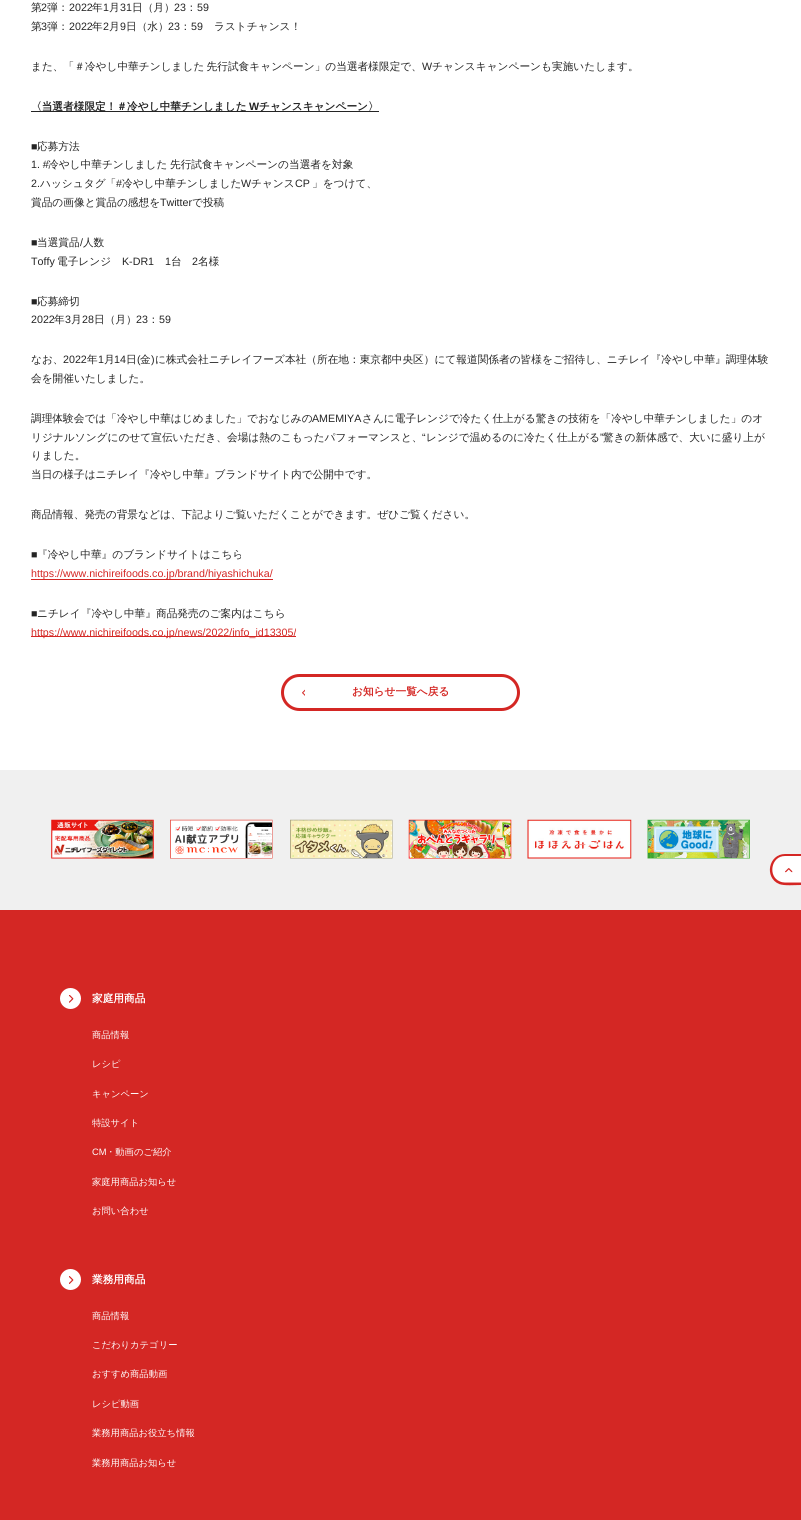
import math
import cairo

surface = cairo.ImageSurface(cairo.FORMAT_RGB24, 801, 1520)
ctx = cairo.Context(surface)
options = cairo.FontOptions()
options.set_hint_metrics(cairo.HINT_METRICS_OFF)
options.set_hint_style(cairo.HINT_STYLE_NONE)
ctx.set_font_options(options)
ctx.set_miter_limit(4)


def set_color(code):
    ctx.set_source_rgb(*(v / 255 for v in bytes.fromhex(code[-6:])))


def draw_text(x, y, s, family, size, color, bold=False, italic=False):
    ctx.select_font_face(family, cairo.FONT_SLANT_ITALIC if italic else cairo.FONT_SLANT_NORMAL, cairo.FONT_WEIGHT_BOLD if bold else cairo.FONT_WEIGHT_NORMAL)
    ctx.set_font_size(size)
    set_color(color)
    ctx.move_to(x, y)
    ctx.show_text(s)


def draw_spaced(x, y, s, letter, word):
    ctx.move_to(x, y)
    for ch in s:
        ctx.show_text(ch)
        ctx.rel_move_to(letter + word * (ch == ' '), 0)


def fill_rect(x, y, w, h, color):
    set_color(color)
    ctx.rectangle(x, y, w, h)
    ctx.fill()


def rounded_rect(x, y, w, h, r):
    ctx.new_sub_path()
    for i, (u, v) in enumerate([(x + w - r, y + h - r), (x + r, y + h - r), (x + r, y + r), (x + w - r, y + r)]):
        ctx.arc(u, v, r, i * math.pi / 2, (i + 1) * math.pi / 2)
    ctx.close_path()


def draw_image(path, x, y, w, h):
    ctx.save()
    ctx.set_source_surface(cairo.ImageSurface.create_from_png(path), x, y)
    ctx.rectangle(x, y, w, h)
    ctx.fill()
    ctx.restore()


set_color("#ffffff")
ctx.paint()
draw_text(31, 11, "第", "WenQuanYi Zen Hei Medium", 10.68, "#242424")
draw_text(41, 11, "2", "Liberation Sans", 10.68, "#242424")
draw_text(47, 11, "弾：", "WenQuanYi Zen Hei Medium", 10.68, "#242424")
draw_text(69, 11, "2022", "Liberation Sans", 10.68, "#242424")
draw_text(92, 11, "年", "WenQuanYi Zen Hei Medium", 10.68, "#242424")
draw_text(103, 11, "1", "Liberation Sans", 10.68, "#242424")
draw_text(109, 11, "月", "WenQuanYi Zen Hei Medium", 10.68, "#242424")
draw_text(120, 11, "31", "Liberation Sans", 10.68, "#242424")
draw_text(132, 11, "日（月）", "WenQuanYi Zen Hei Medium", 10.68, "#242424")
draw_text(174, 11, "23", "Liberation Sans", 10.68, "#242424")
draw_text(186, 11, "：", "WenQuanYi Zen Hei Medium", 10.68, "#242424")
draw_text(197, 11, "59", "Liberation Sans", 10.68, "#242424")
draw_text(31, 30, "第", "WenQuanYi Zen Hei Medium", 10.68, "#242424")
draw_text(41, 30, "3", "Liberation Sans", 10.68, "#242424")
draw_text(47, 30, "弾：", "WenQuanYi Zen Hei Medium", 10.68, "#242424")
draw_text(69, 30, "2022", "Liberation Sans", 10.68, "#242424")
draw_text(92, 30, "年", "WenQuanYi Zen Hei Medium", 10.68, "#242424")
draw_text(103, 30, "2", "Liberation Sans", 10.68, "#242424")
draw_text(109, 30, "月", "WenQuanYi Zen Hei Medium", 10.68, "#242424")
draw_text(120, 30, "9", "Liberation Sans", 10.68, "#242424")
draw_text(126, 30, "日（水）", "WenQuanYi Zen Hei Medium", 10.68, "#242424")
draw_text(168, 30, "23", "Liberation Sans", 10.68, "#242424")
draw_text(180, 30, "：", "WenQuanYi Zen Hei Medium", 10.68, "#242424")
draw_text(191, 30, "59", "Liberation Sans", 10.68, "#242424")
draw_text(214, 30, "ラストチャンス！", "WenQuanYi Zen Hei Medium", 10.68, "#242424")
draw_spaced(31, 70, "また、「＃冷やし中華チンしました 先行試食キャンペーン」の当選者様限定で、", 0, -1)
draw_text(422, 70, "W", "Liberation Sans", 10.68, "#242424")
draw_text(432, 70, "チャンスキャンペーンも実施いたします。", "WenQuanYi Zen Hei Medium", 10.68, "#242424")
fill_rect(31, 111, 348, 1, "#242424")
draw_text(31, 110, "〈当選者様限定！＃冷やし中華チンしました", "WenQuanYi Zen Hei", 10.68, "#242424", bold=True)
draw_text(249, 110, "W", "Liberation Sans", 10.68, "#242424", bold=True)
draw_text(259, 110, "チャンスキャンペーン〉", "WenQuanYi Zen Hei", 10.68, "#242424", bold=True)
draw_text(31, 150, "■", "Liberation Sans", 10.68, "#242424")
draw_text(37, 150, "応募方法", "WenQuanYi Zen Hei Medium", 10.68, "#242424")
draw_text(31, 168, "1. #", "Liberation Sans", 10.68, "#242424")
draw_text(48, 168, "冷やし中華チンしました", "WenQuanYi Zen Hei Medium", 10.68, "#242424")
draw_text(170, 168, "先行試食キャンペーンの当選者を対象", "WenQuanYi Zen Hei Medium", 10.68, "#242424")
draw_text(31, 187, "2.", "Liberation Sans", 10.68, "#242424")
draw_text(40, 187, "ハッシュタグ「", "WenQuanYi Zen Hei Medium", 10.68, "#242424")
draw_text(116, 187, "#", "Liberation Sans", 10.68, "#242424")
draw_text(122, 187, "冷やし中華チンしました", "WenQuanYi Zen Hei Medium", 10.68, "#242424")
draw_text(241, 187, "W", "Liberation Sans", 10.68, "#242424")
draw_text(251, 187, "チャンス", "WenQuanYi Zen Hei Medium", 10.68, "#242424")
draw_text(295, 187, "CP", "Liberation Sans", 10.68, "#242424")
draw_text(312, 187, "」をつけて、", "WenQuanYi Zen Hei Medium", 10.68, "#242424")
draw_text(31, 206, "賞品の画像と賞品の感想を", "WenQuanYi Zen Hei Medium", 10.68, "#242424")
draw_text(160, 206, "Twitter", "Liberation Sans", 10.68, "#242424")
draw_text(192, 206, "で投稿", "WenQuanYi Zen Hei Medium", 10.68, "#242424")
draw_text(37, 246, "当選賞品 人数", "WenQuanYi Zen Hei Medium", 10.68, "#242424")
draw_text(31, 246, "■", "Liberation Sans", 10.68, "#242424")
draw_text(80, 246, "/", "Liberation Sans", 10.68, "#242424")
draw_text(31, 265, "Toffy", "Liberation Sans", 10.68, "#242424")
draw_text(57, 265, "電子レンジ", "WenQuanYi Zen Hei Medium", 10.68, "#242424")
draw_text(122, 265, "K-DR1", "Liberation Sans", 10.68, "#242424")
draw_text(165, 265, "1", "Liberation Sans", 10.68, "#242424")
draw_text(171, 265, "台", "WenQuanYi Zen Hei Medium", 10.68, "#242424")
draw_text(192, 265, "2", "Liberation Sans", 10.68, "#242424")
draw_text(198, 265, "名様", "WenQuanYi Zen Hei Medium", 10.68, "#242424")
draw_text(31, 305, "■", "Liberation Sans", 10.68, "#242424")
draw_text(37, 305, "応募締切", "WenQuanYi Zen Hei Medium", 10.68, "#242424")
draw_text(31, 323, "2022", "Liberation Sans", 10.68, "#242424")
draw_text(54, 323, "年", "WenQuanYi Zen Hei Medium", 10.68, "#242424")
draw_text(65, 323, "3", "Liberation Sans", 10.68, "#242424")
draw_text(71, 323, "月", "WenQuanYi Zen Hei Medium", 10.68, "#242424")
draw_text(82, 323, "28", "Liberation Sans", 10.68, "#242424")
draw_text(94, 323, "日（月）", "WenQuanYi Zen Hei Medium", 10.68, "#242424")
draw_text(136, 323, "23", "Liberation Sans", 10.68, "#242424")
draw_text(148, 323, "：", "WenQuanYi Zen Hei Medium", 10.68, "#242424")
draw_text(159, 323, "59", "Liberation Sans", 10.68, "#242424")
draw_text(31, 363, "なお、", "WenQuanYi Zen Hei Medium", 10.68, "#242424")
draw_text(63, 363, "2022", "Liberation Sans", 10.68, "#242424")
draw_text(87, 363, "年", "WenQuanYi Zen Hei Medium", 10.68, "#242424")
draw_text(98, 363, "1", "Liberation Sans", 10.68, "#242424")
draw_text(104, 363, "月", "WenQuanYi Zen Hei Medium", 10.68, "#242424")
draw_text(114, 363, "14", "Liberation Sans", 10.68, "#242424")
draw_text(126, 363, "日", "WenQuanYi Zen Hei Medium", 10.68, "#242424")
draw_text(137, 363, "(", "Liberation Sans", 10.68, "#242424")
draw_text(140, 363, "金", "WenQuanYi Zen Hei Medium", 10.68, "#242424")
draw_text(151, 363, ")", "Liberation Sans", 10.68, "#242424")
draw_text(155, 363, "に株式会社ニチレイフーズ本社（所在地：東京都中央区）にて報道関係者の皆様をご招待し、ニチレイ『冷やし中華』調理体験", "WenQuanYi Zen Hei Medium", 10.68, "#242424")
draw_text(31, 382, "会を開催いたしました。", "WenQuanYi Zen Hei Medium", 10.68, "#242424")
draw_text(31, 422, "調理体験会では「冷やし中華はじめました」でおなじみの", "WenQuanYi Zen Hei Medium", 10.68, "#242424")
draw_text(312, 422, "AMEMIYA", "Liberation Sans", 10.68, "#242424")
draw_text(362, 422, "さんに電子レンジで冷たく仕上がる驚きの技術を「冷やし中華チンしました」のオ", "WenQuanYi Zen Hei Medium", 10.68, "#242424")
draw_text(31, 441, "リジナルソングにのせて宣伝いただき、会場は熱のこもったパフォーマンスと、", "WenQuanYi Zen Hei Medium", 10.68, "#242424")
draw_text(422, 441, "“", "Liberation Sans", 10.68, "#242424")
draw_text(426, 441, "レンジで温めるのに冷たく仕上がる", "WenQuanYi Zen Hei Medium", 10.68, "#242424")
draw_text(600, 441, "”", "Liberation Sans", 10.68, "#242424")
draw_text(603, 441, "驚きの新体感で、大いに盛り上が", "WenQuanYi Zen Hei Medium", 10.68, "#242424")
draw_text(31, 459, "りました。", "WenQuanYi Zen Hei Medium", 10.68, "#242424")
draw_text(31, 478, "当日の様子はニチレイ『冷やし中華』ブランドサイト内で公開中です。", "WenQuanYi Zen Hei Medium", 10.68, "#242424")
draw_text(31, 518, "商品情報、発売の背景などは、下記よりご覧いただくことができます。ぜひご覧ください。", "WenQuanYi Zen Hei Medium", 10.68, "#242424")
draw_text(31, 558, "■", "Liberation Sans", 10.68, "#242424")
draw_text(37, 558, "『冷やし中華』のブランドサイトはこちら", "WenQuanYi Zen Hei Medium", 10.68, "#242424")
fill_rect(31, 579, 242, 1, "#d42724")
draw_text(31, 577, "https://www.nichireifoods.co.jp/brand/hiyashichuka/", "Liberation Sans", 10.68, "#d42724")
draw_text(31, 617, "■", "Liberation Sans", 10.68, "#242424")
draw_text(37, 617, "ニチレイ『冷やし中華』商品発売のご案内はこちら", "WenQuanYi Zen Hei Medium", 10.68, "#242424")
fill_rect(31, 636, 265, 1, "#d42724")
draw_text(31, 636, "https://www.nichireifoods.co.jp/news/2022/info_id13305/", "Liberation Sans", 10.68, "#d42724")
rounded_rect(282.5, 675.5, 236, 34, 17)
ctx.set_line_width(3)
ctx.stroke()
draw_image("assets/img1.png", 302, 689, 3, 7)
draw_text(352, 695, "お知らせ一覧へ戻る", "WenQuanYi Zen Hei", 10.68, "#d42724", bold=True)
fill_rect(0, 770, 801, 140, "#f0f0f0")
draw_image("assets/img2.png", 51, 819, 103, 40)
draw_image("assets/img3.png", 170, 819, 103, 40)
draw_image("assets/img4.png", 290, 819, 103, 40)
draw_image("assets/img5.png", 408, 819, 104, 40)
draw_image("assets/img6.png", 527, 819, 105, 40)
draw_image("assets/img7.png", 647, 819, 103, 40)
set_color("#ffffff")
ctx.new_path()
ctx.move_to(785, 854)
ctx.line_to(801, 854)
ctx.line_to(801, 885)
ctx.line_to(785, 885)
ctx.curve_to(776.5, 885, 770, 878.5, 770, 870)
ctx.line_to(770, 869)
ctx.curve_to(770, 860.5, 776.5, 854, 785, 854)
ctx.close_path()
ctx.fill()
set_color("#d42724")
ctx.set_fill_rule(cairo.FILL_RULE_EVEN_ODD)
ctx.new_path()
ctx.move_to(785, 854)
ctx.line_to(801, 854)
ctx.line_to(801, 885)
ctx.curve_to(795.5, 885, 784, 886, 779, 884)
ctx.curve_to(764, 877.5, 768.5, 854, 785, 854)
ctx.close_path()
ctx.move_to(785, 856)
ctx.line_to(801, 856)
ctx.line_to(801, 882.5)
ctx.line_to(790.5, 882.5)
ctx.curve_to(787, 882.5, 783.5, 883, 780, 881.5)
ctx.curve_to(767.5, 876.5, 771, 856, 785, 856)
ctx.close_path()
ctx.fill()
draw_image("assets/img8.png", 785, 868, 8, 5)
fill_rect(0, 910, 801, 610, "#d42724")
set_color("#ffffff")
ctx.arc(70.5, 998.5, 10.5, 0, 2 * math.pi)
ctx.fill()
draw_text(92, 1002, "家庭用商品", "WenQuanYi Zen Hei", 10.68, "#ffffff", bold=True)
draw_image("assets/img9.png", 69, 995, 5, 8)
draw_text(92, 1038, "商品情報", "WenQuanYi Zen Hei Medium", 9.3, "#ffffff")
draw_text(92, 1067, "レシピ", "WenQuanYi Zen Hei Medium", 9.3, "#ffffff")
draw_text(92, 1097, "キャンペーン", "WenQuanYi Zen Hei Medium", 9.3, "#ffffff")
draw_text(92, 1126, "特設サイト", "WenQuanYi Zen Hei Medium", 9.3, "#ffffff")
draw_text(92, 1155, "CM", "Liberation Sans", 9.3, "#ffffff")
draw_text(106, 1155, "・動画のご紹介", "WenQuanYi Zen Hei Medium", 9.3, "#ffffff")
draw_text(92, 1185, "家庭用商品お知らせ", "WenQuanYi Zen Hei Medium", 9.3, "#ffffff")
draw_text(92, 1214, "お問い合わせ", "WenQuanYi Zen Hei Medium", 9.3, "#ffffff")
ctx.new_path()
ctx.arc(70.5, 1279.5, 10.5, 0, 2 * math.pi)
ctx.fill()
draw_text(92, 1283, "業務用商品", "WenQuanYi Zen Hei", 10.68, "#ffffff", bold=True)
draw_image("assets/img10.png", 69, 1276, 5, 8)
draw_text(92, 1319, "商品情報", "WenQuanYi Zen Hei Medium", 9.3, "#ffffff")
draw_text(92, 1348, "こだわりカテゴリー", "WenQuanYi Zen Hei Medium", 9.3, "#ffffff")
draw_text(92, 1377, "おすすめ商品動画", "WenQuanYi Zen Hei Medium", 9.3, "#ffffff")
draw_text(92, 1407, "レシピ動画", "WenQuanYi Zen Hei Medium", 9.3, "#ffffff")
draw_text(92, 1436, "業務用商品お役立ち情報", "WenQuanYi Zen Hei Medium", 9.3, "#ffffff")
draw_text(92, 1466, "業務用商品お知らせ", "WenQuanYi Zen Hei Medium", 9.3, "#ffffff")
surface.write_to_png("output.png")
